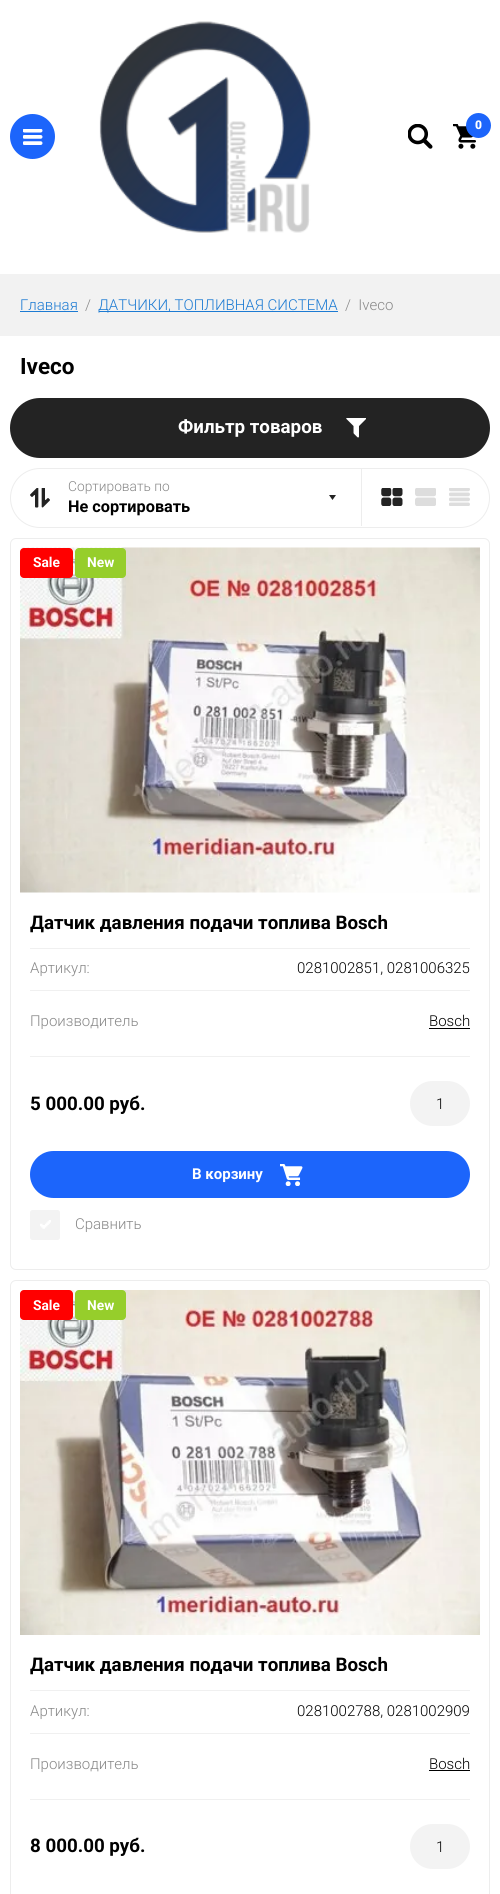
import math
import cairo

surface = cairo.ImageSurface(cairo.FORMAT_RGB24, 500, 1894)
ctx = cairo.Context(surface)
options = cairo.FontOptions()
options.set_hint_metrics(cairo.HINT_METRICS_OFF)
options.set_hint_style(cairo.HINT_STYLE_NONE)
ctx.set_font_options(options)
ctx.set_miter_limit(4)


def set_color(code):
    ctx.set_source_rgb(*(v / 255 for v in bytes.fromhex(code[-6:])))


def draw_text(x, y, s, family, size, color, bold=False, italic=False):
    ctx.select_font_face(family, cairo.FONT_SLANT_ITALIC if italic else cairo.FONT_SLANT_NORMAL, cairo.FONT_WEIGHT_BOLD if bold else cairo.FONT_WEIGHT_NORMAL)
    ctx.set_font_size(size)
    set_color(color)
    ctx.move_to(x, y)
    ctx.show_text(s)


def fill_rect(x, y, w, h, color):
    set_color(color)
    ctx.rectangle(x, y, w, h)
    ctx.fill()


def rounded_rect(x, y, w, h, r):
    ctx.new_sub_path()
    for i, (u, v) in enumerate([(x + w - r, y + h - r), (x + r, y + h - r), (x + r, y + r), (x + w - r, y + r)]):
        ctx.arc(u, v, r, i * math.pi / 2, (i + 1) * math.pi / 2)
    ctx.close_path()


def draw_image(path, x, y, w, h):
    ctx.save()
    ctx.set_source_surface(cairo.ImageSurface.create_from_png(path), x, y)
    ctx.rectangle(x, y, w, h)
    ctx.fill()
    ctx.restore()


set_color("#ffffff")
ctx.paint()
set_color("#1c65fb")
ctx.arc(32.5, 136.5, 22.5, 0, 2 * math.pi)
ctx.fill()
draw_image("assets/img1.png", 23, 129, 20, 16)
draw_image("assets/img2.png", 99, 21, 212, 212)
draw_image("assets/img3.png", 408, 124, 25, 25)
draw_image("assets/img4.png", 453, 124, 23, 25)
ctx.arc(478.5, 125.5, 12.5, 0, 2 * math.pi)
ctx.fill()
draw_text(475, 129, "0", "Roboto Black", 12, "#ffffff")
fill_rect(0, 274, 500, 62, "#f2f2f2")
draw_text(20, 310, "Главная", "Roboto Light", 15, "#1d7bd3")
fill_rect(20, 311, 58, 1, "#1d7bd3")
draw_text(85, 310, "/", "Roboto Light", 15, "#888888")
fill_rect(99, 311, 239, 1, "#1d7bd3")
draw_text(98, 310, "ДАТЧИКИ, ТОПЛИВНАЯ СИСТЕМА", "Roboto Light", 15, "#1d7bd3")
draw_text(345, 310, "/  Iveco", "Roboto Light", 15, "#888888")
draw_text(20, 374, "Iveco", "Roboto", 22.5, "#000000", bold=True)
set_color("#232323")
rounded_rect(10, 398, 480, 60, 30)
ctx.fill()
draw_image("assets/img5.png", 346, 418, 20, 20)
draw_text(178, 433, "Фильтр товаров", "Roboto", 18.75, "#ffffff", bold=True)
rounded_rect(10.5, 468.5, 479, 59, 29.5)
set_color("#ededed")
ctx.set_line_width(1)
ctx.stroke()
draw_image("assets/img6.png", 30, 488, 20, 20)
fill_rect(361, 469, 1, 57, "#ededed")
draw_text(68, 491, "Сортировать по", "Roboto Light", 13.75, "#888888")
set_color("#232323")
ctx.new_path()
ctx.move_to(329, 495)
ctx.line_to(336, 495)
ctx.line_to(332.5, 500)
ctx.close_path()
ctx.fill()
draw_text(68, 512, "Не сортировать", "Roboto", 16.25, "#000000", bold=True)
draw_image("assets/img7.png", 381, 488, 22, 18)
draw_image("assets/img8.png", 415, 488, 21, 18)
draw_image("assets/img9.png", 449, 488, 21, 18)
rounded_rect(10.5, 538.5, 479, 731, 5.5)
set_color("#ededed")
ctx.stroke()
draw_image("assets/img10.png", 20, 547, 460, 346)
set_color("#ff0000")
rounded_rect(20, 548, 53, 30, 4)
ctx.fill()
draw_text(33, 567, "Sale", "Roboto", 13.75, "#ffffff", bold=True)
set_color("#96ce2b")
rounded_rect(75, 548, 51, 30, 4)
ctx.fill()
draw_text(87, 567, "New", "Roboto", 13.75, "#ffffff", bold=True)
draw_text(30, 929, "Датчик давления подачи топлива Bosch", "Roboto", 18.75, "#000000", bold=True)
fill_rect(30, 948, 440, 1, "#f0f0f0")
draw_text(30, 973, "Артикул:", "Roboto Light", 15, "#888888")
draw_text(297, 973, "0281002851, 0281006325", "Roboto Light", 15, "#000000")
fill_rect(30, 990, 440, 1, "#f0f0f0")
draw_text(30, 1026, "Производитель", "Roboto Light", 15, "#888888")
draw_text(429, 1026, "Bosch", "Roboto Light", 15, "#000000")
fill_rect(429, 1028, 41, 1, "#000000")
fill_rect(30, 1056, 440, 1, "#f0f0f0")
draw_text(30, 1110, "5 000.00 руб.", "Roboto", 18.75, "#000000", bold=True)
set_color("#f3f3f3")
rounded_rect(410, 1081, 60, 45, 22.5)
ctx.fill()
draw_text(436, 1109, "1", "Roboto Light", 15, "#000000")
set_color("#1c65fb")
rounded_rect(30, 1151, 440, 47, 23.5)
ctx.fill()
draw_text(192, 1179, "В корзину", "Roboto", 15, "#ffffff", bold=True)
draw_image("assets/img11.png", 280, 1164, 23, 22)
set_color("#f3f3f3")
rounded_rect(30, 1210, 30, 30, 2.5)
ctx.fill()
draw_image("assets/img12.png", 40, 1220, 11, 9)
draw_text(75, 1229, "Сравнить", "Roboto Light", 15, "#888888")
rounded_rect(10.5, 1280.5, 479, 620, 5.5)
set_color("#ededed")
ctx.stroke()
draw_image("assets/img13.png", 20, 1290, 460, 345)
set_color("#ff0000")
rounded_rect(20, 1290, 53, 30, 4)
ctx.fill()
draw_text(33, 1310, "Sale", "Roboto", 13.75, "#ffffff", bold=True)
set_color("#96ce2b")
rounded_rect(75, 1290, 51, 30, 4)
ctx.fill()
draw_text(87, 1310, "New", "Roboto", 13.75, "#ffffff", bold=True)
draw_text(30, 1671, "Датчик давления подачи топлива Bosch", "Roboto", 18.75, "#000000", bold=True)
fill_rect(30, 1690, 440, 1, "#f0f0f0")
draw_text(30, 1716, "Артикул:", "Roboto Light", 15, "#888888")
draw_text(297, 1716, "0281002788, 0281002909", "Roboto Light", 15, "#000000")
fill_rect(30, 1733, 440, 1, "#f0f0f0")
draw_text(30, 1769, "Производитель", "Roboto Light", 15, "#888888")
draw_text(429, 1769, "Bosch", "Roboto Light", 15, "#000000")
fill_rect(429, 1770, 41, 1, "#000000")
fill_rect(30, 1799, 440, 1, "#f0f0f0")
draw_text(30, 1852, "8 000.00 руб.", "Roboto", 18.75, "#000000", bold=True)
set_color("#f3f3f3")
rounded_rect(410, 1824, 60, 45, 22.5)
ctx.fill()
draw_text(436, 1852, "1", "Roboto Light", 15, "#000000")
surface.write_to_png("output.png")
